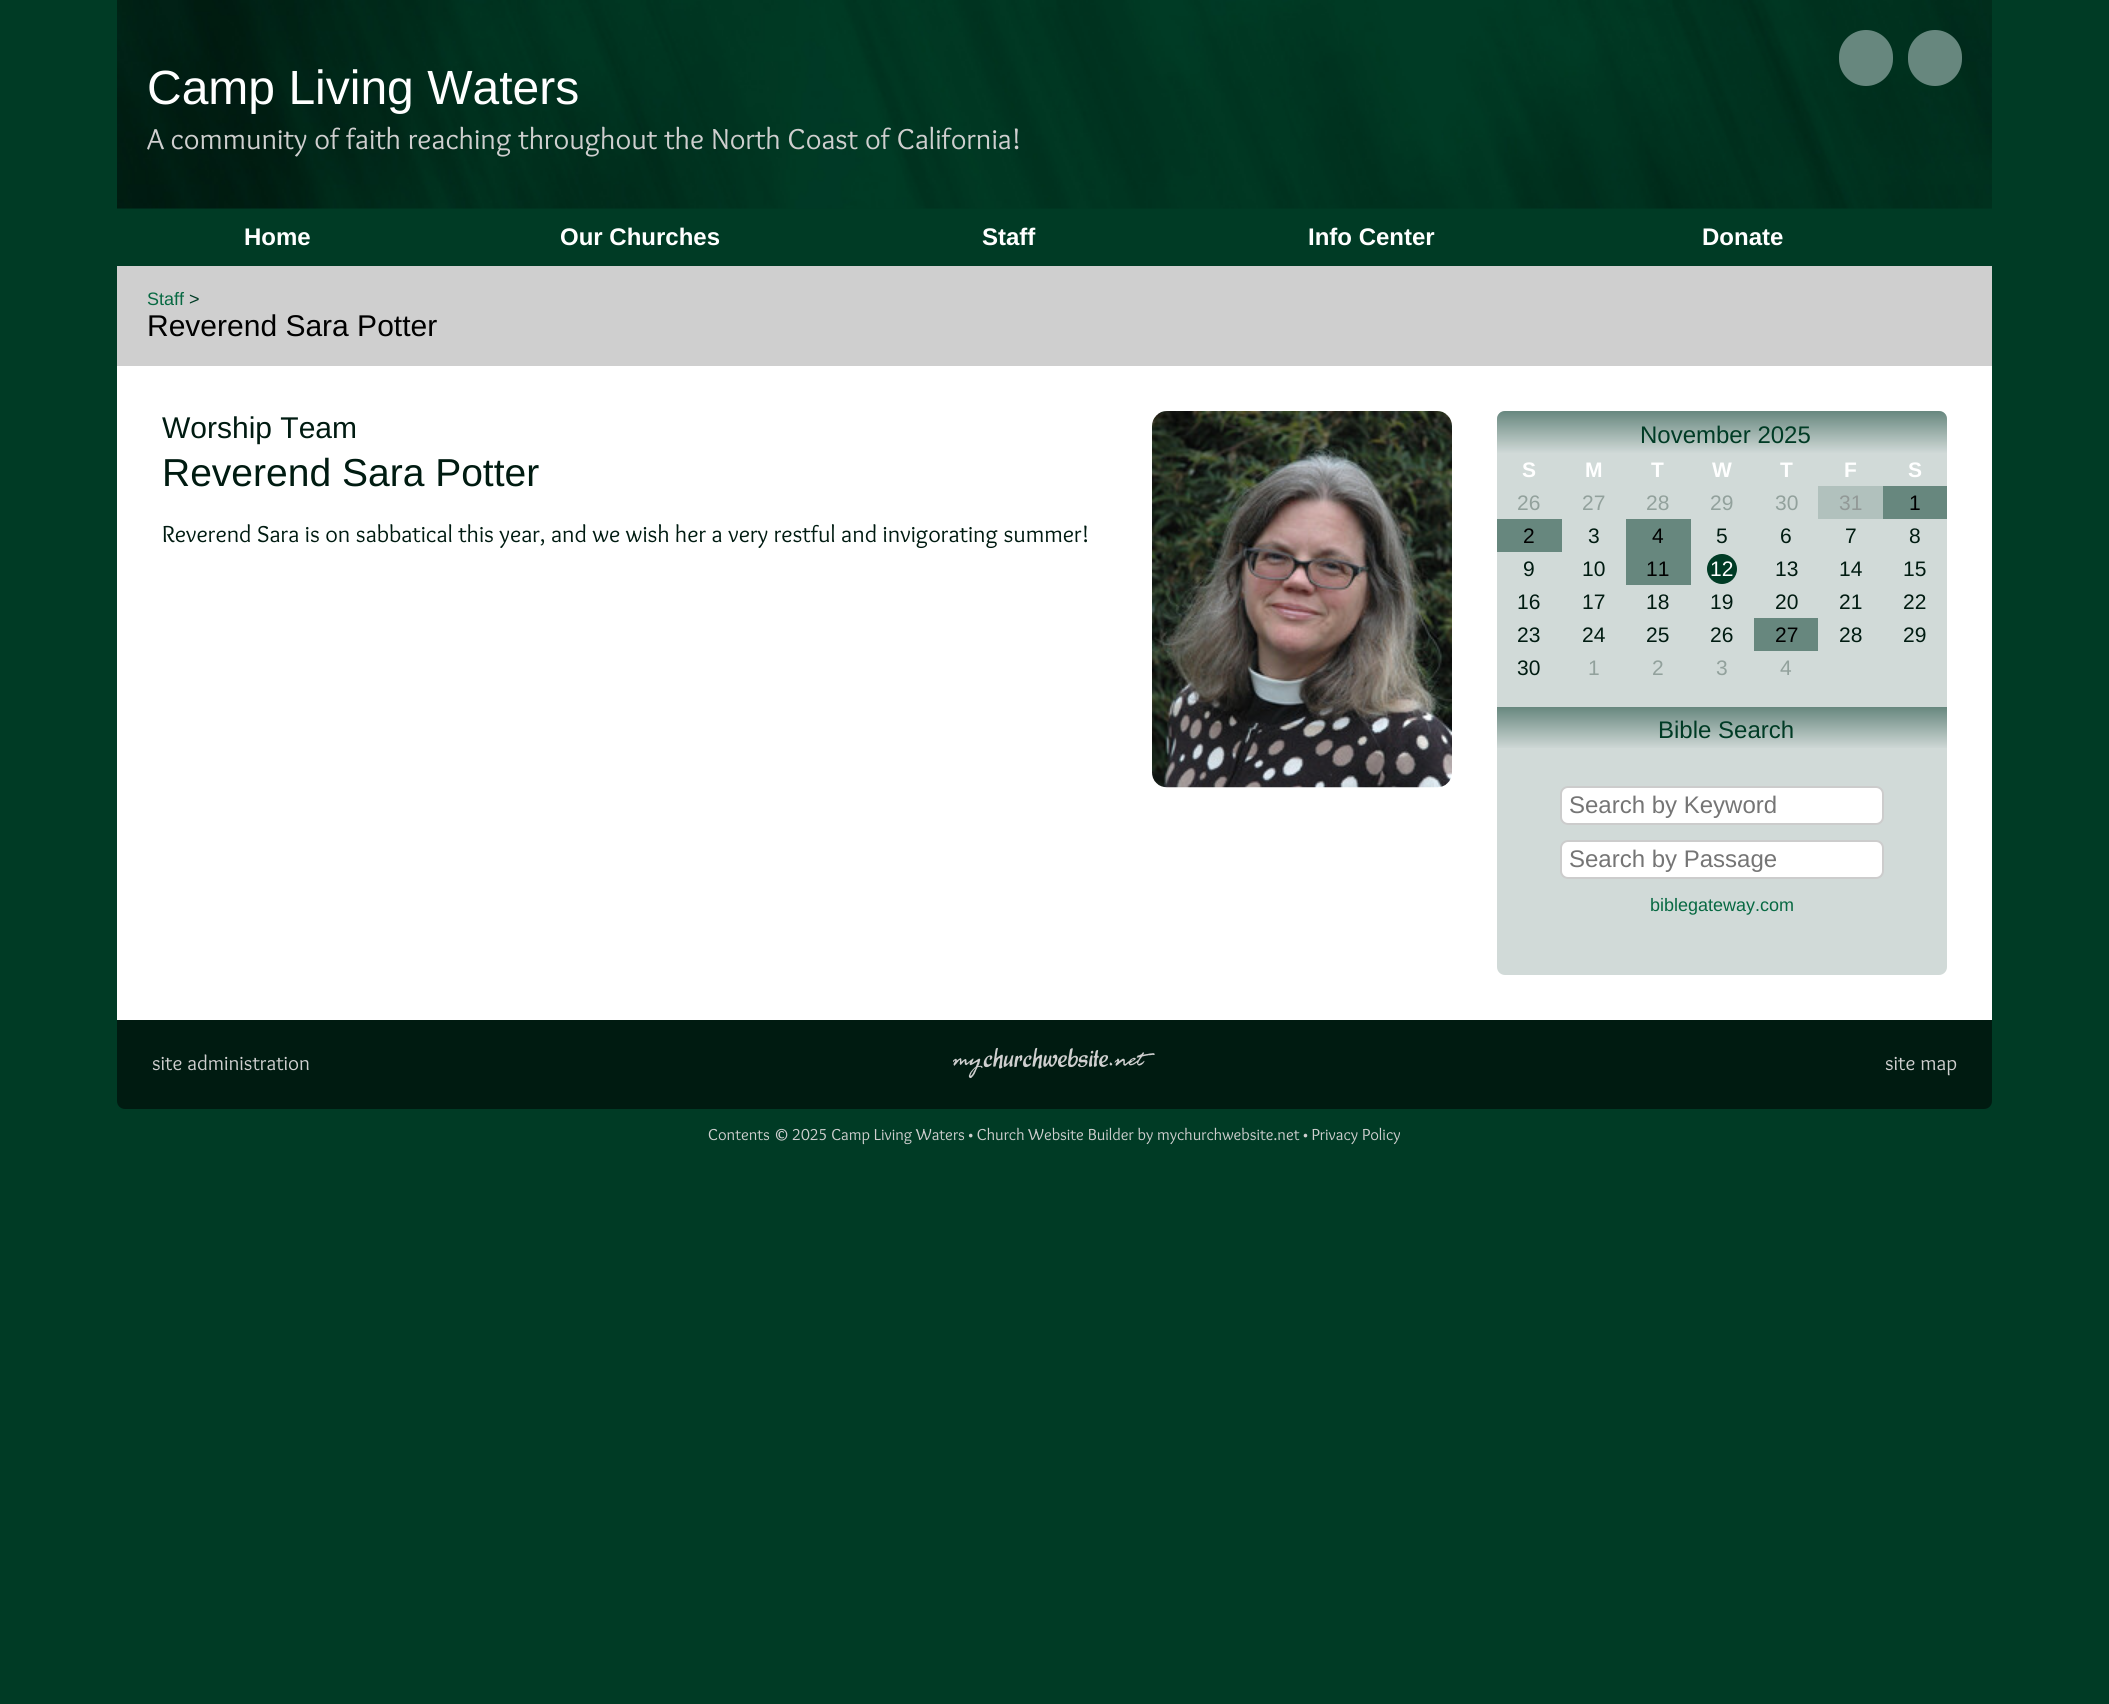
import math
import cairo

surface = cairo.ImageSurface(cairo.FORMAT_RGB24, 2109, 1704)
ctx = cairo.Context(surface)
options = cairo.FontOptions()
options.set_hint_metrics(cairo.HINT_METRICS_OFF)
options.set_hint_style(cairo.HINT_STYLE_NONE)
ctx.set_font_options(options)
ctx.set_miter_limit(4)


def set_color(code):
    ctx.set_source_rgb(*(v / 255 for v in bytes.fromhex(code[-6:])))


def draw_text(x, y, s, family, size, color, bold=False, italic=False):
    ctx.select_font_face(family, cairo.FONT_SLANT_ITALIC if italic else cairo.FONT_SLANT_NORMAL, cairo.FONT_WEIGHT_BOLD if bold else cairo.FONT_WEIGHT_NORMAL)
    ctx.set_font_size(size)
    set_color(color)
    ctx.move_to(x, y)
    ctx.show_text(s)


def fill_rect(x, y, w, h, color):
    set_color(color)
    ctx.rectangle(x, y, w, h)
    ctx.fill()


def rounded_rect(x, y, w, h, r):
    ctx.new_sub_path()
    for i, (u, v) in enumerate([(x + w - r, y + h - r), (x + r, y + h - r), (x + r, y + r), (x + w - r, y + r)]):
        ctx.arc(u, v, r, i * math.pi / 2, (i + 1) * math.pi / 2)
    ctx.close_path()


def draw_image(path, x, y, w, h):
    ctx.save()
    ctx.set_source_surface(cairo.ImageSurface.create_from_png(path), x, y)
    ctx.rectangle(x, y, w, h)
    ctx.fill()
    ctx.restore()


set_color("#003b25")
ctx.paint()
draw_image("assets/img1.png", 117, 0, 1875, 209)
set_color("#67877e")
rounded_rect(1839, 30, 54, 56, 27)
ctx.fill()
rounded_rect(1908, 30, 54, 56, 27)
ctx.fill()
draw_text(147, 104, "Camp Living Waters", "Liberation Sans", 48, "#ffffff")
draw_text(147, 149, "A community of faith reaching throughout the North Coast of California!", "Overlock", 30, "#cfcfcf")
draw_text(244, 245, "Home", "Liberation Sans", 24, "#ffffff", bold=True)
draw_text(560, 245, "Our Churches", "Liberation Sans", 24, "#ffffff", bold=True)
draw_text(982, 245, "Staff", "Liberation Sans", 24, "#ffffff", bold=True)
draw_text(1308, 245, "Info Center", "Liberation Sans", 24, "#ffffff", bold=True)
draw_text(1702, 245, "Donate", "Liberation Sans", 24, "#ffffff", bold=True)
fill_rect(117, 366, 1875, 654, "#ffffff")
fill_rect(117, 266, 1875, 100, "#cfcfcf")
draw_text(147, 305, "Staff", "Liberation Sans", 18, "#076942")
draw_text(189, 305, ">", "Liberation Sans", 18, "#003b25")
draw_text(147, 336, "Reverend Sara Potter", "Liberation Sans", 30, "#000000")
draw_text(162, 438, "Worship Team", "Liberation Sans", 30, "#001b11")
draw_text(162, 486, "Reverend Sara Potter", "Liberation Sans", 39, "#001b11")
draw_image("assets/img2.png", 1152, 411, 300, 377)
draw_text(162, 542, "Reverend Sara is on sabbatical this year, and we wish her a very restful and invigorating summer!", "Overlock", 24, "#001b11")
set_color("#d1dad8")
rounded_rect(1497, 411, 450, 564, 8)
ctx.fill()
gradient = cairo.LinearGradient(1722, 411, 1722, 453)
gradient.add_color_stop_rgba(0, 0.404, 0.529, 0.494, 1)
gradient.add_color_stop_rgba(1, 0.404, 0.529, 0.494, 0.01)
ctx.set_source(gradient)
ctx.new_path()
ctx.move_to(1505, 411)
ctx.line_to(1939, 411)
ctx.curve_to(1943.5, 411, 1947, 414.5, 1947, 419)
ctx.line_to(1947, 453)
ctx.line_to(1497, 453)
ctx.line_to(1497, 419)
ctx.curve_to(1497, 414.5, 1500.5, 411, 1505, 411)
ctx.close_path()
ctx.fill()
draw_text(1640, 443, "November 2025", "Liberation Sans", 24, "#003b25")
draw_text(1522, 477, "S", "Liberation Sans", 21, "#ffffff", bold=True)
draw_text(1585, 477, "M", "Liberation Sans", 21, "#ffffff", bold=True)
draw_text(1651, 477, "T", "Liberation Sans", 21, "#ffffff", bold=True)
draw_text(1712, 477, "W", "Liberation Sans", 21, "#ffffff", bold=True)
draw_text(1780, 477, "T", "Liberation Sans", 21, "#ffffff", bold=True)
draw_text(1844, 477, "F", "Liberation Sans", 21, "#ffffff", bold=True)
draw_text(1908, 477, "S", "Liberation Sans", 21, "#ffffff", bold=True)
draw_text(1517, 510, "26", "Liberation Sans", 21, "#92a19c")
draw_text(1582, 510, "27", "Liberation Sans", 21, "#92a19c")
draw_text(1646, 510, "28", "Liberation Sans", 21, "#92a19c")
draw_text(1710, 510, "29", "Liberation Sans", 21, "#92a19c")
draw_text(1775, 510, "30", "Liberation Sans", 21, "#92a19c")
fill_rect(1818, 486, 65, 33, "#b1c1bd")
draw_text(1839, 510, "31", "Liberation Sans", 21, "#929997")
fill_rect(1883, 486, 64, 33, "#67877e")
draw_text(1909, 510, "1", "Liberation Sans", 21, "#000000")
fill_rect(1497, 519, 65, 33, "#67877e")
draw_text(1523, 543, "2", "Liberation Sans", 21, "#000000")
draw_text(1588, 543, "3", "Liberation Sans", 21, "#001b11")
fill_rect(1626, 519, 65, 66, "#67877e")
draw_text(1652, 543, "4", "Liberation Sans", 21, "#000000")
draw_text(1716, 543, "5", "Liberation Sans", 21, "#001b11")
draw_text(1780, 543, "6", "Liberation Sans", 21, "#001b11")
draw_text(1845, 543, "7", "Liberation Sans", 21, "#001b11")
draw_text(1909, 543, "8", "Liberation Sans", 21, "#001b11")
draw_text(1523, 576, "9", "Liberation Sans", 21, "#001b11")
draw_text(1582, 576, "10", "Liberation Sans", 21, "#001b11")
draw_text(1646, 576, "11", "Liberation Sans", 21, "#000000")
set_color("#003b25")
ctx.new_path()
ctx.arc(1722, 569, 15, 0, 2 * math.pi)
ctx.fill()
draw_text(1710, 576, "12", "Liberation Sans", 21, "#ffffff")
draw_text(1775, 576, "13", "Liberation Sans", 21, "#001b11")
draw_text(1839, 576, "14", "Liberation Sans", 21, "#001b11")
draw_text(1903, 576, "15", "Liberation Sans", 21, "#001b11")
draw_text(1517, 609, "16", "Liberation Sans", 21, "#001b11")
draw_text(1582, 609, "17", "Liberation Sans", 21, "#001b11")
draw_text(1646, 609, "18", "Liberation Sans", 21, "#001b11")
draw_text(1710, 609, "19", "Liberation Sans", 21, "#001b11")
draw_text(1775, 609, "20", "Liberation Sans", 21, "#001b11")
draw_text(1839, 609, "21", "Liberation Sans", 21, "#001b11")
draw_text(1903, 609, "22", "Liberation Sans", 21, "#001b11")
draw_text(1517, 642, "23", "Liberation Sans", 21, "#001b11")
draw_text(1582, 642, "24", "Liberation Sans", 21, "#001b11")
draw_text(1646, 642, "25", "Liberation Sans", 21, "#001b11")
draw_text(1710, 642, "26", "Liberation Sans", 21, "#001b11")
fill_rect(1754, 618, 64, 33, "#67877e")
draw_text(1775, 642, "27", "Liberation Sans", 21, "#000000")
draw_text(1839, 642, "28", "Liberation Sans", 21, "#001b11")
draw_text(1903, 642, "29", "Liberation Sans", 21, "#001b11")
draw_text(1517, 675, "30", "Liberation Sans", 21, "#001b11")
draw_text(1588, 675, "1", "Liberation Sans", 21, "#92a19c")
draw_text(1652, 675, "2", "Liberation Sans", 21, "#92a19c")
draw_text(1716, 675, "3", "Liberation Sans", 21, "#92a19c")
draw_text(1780, 675, "4", "Liberation Sans", 21, "#92a19c")
gradient = cairo.LinearGradient(1722, 707, 1722, 749)
gradient.add_color_stop_rgba(0, 0.404, 0.529, 0.494, 1)
gradient.add_color_stop_rgba(1, 0.816, 0.851, 0.843, 1)
ctx.set_source(gradient)
ctx.rectangle(1497, 707, 450, 41)
ctx.fill()
draw_text(1658, 738, "Bible Search", "Liberation Sans", 24, "#003b25")
set_color("#ffffff")
rounded_rect(1561, 787, 322, 37, 7)
ctx.fill_preserve()
set_color("#cccccc")
ctx.stroke()
draw_text(1569, 813, "Search by Keyword", "Liberation Sans", 24, "#757575")
set_color("#ffffff")
rounded_rect(1561, 841, 322, 37, 7)
ctx.fill_preserve()
set_color("#cccccc")
ctx.stroke()
draw_text(1569, 867, "Search by Passage", "Liberation Sans", 24, "#757575")
draw_text(1650, 911, "biblegateway.com", "Liberation Sans", 18, "#076942")
set_color("#001b11")
ctx.new_path()
ctx.move_to(117, 1020)
ctx.line_to(1992, 1020)
ctx.line_to(1992, 1101)
ctx.curve_to(1992, 1105.5, 1988.5, 1109, 1984, 1109)
ctx.line_to(125, 1109)
ctx.curve_to(120.5, 1109, 117, 1105.5, 117, 1101)
ctx.close_path()
ctx.fill()
draw_text(152, 1070, "site administration", "Overlock", 21, "#cfcfcf")
draw_image("assets/img3.png", 953, 1047, 202, 32)
draw_text(1885, 1070, "site map", "Overlock", 21, "#cfcfcf")
draw_text(708, 1140, "Contents © 2025 Camp Living Waters • Church Website Builder by mychurchwebsite.net • Privacy Policy", "Overlock", 16.5, "#cfcfcf")
surface.write_to_png("output.png")
